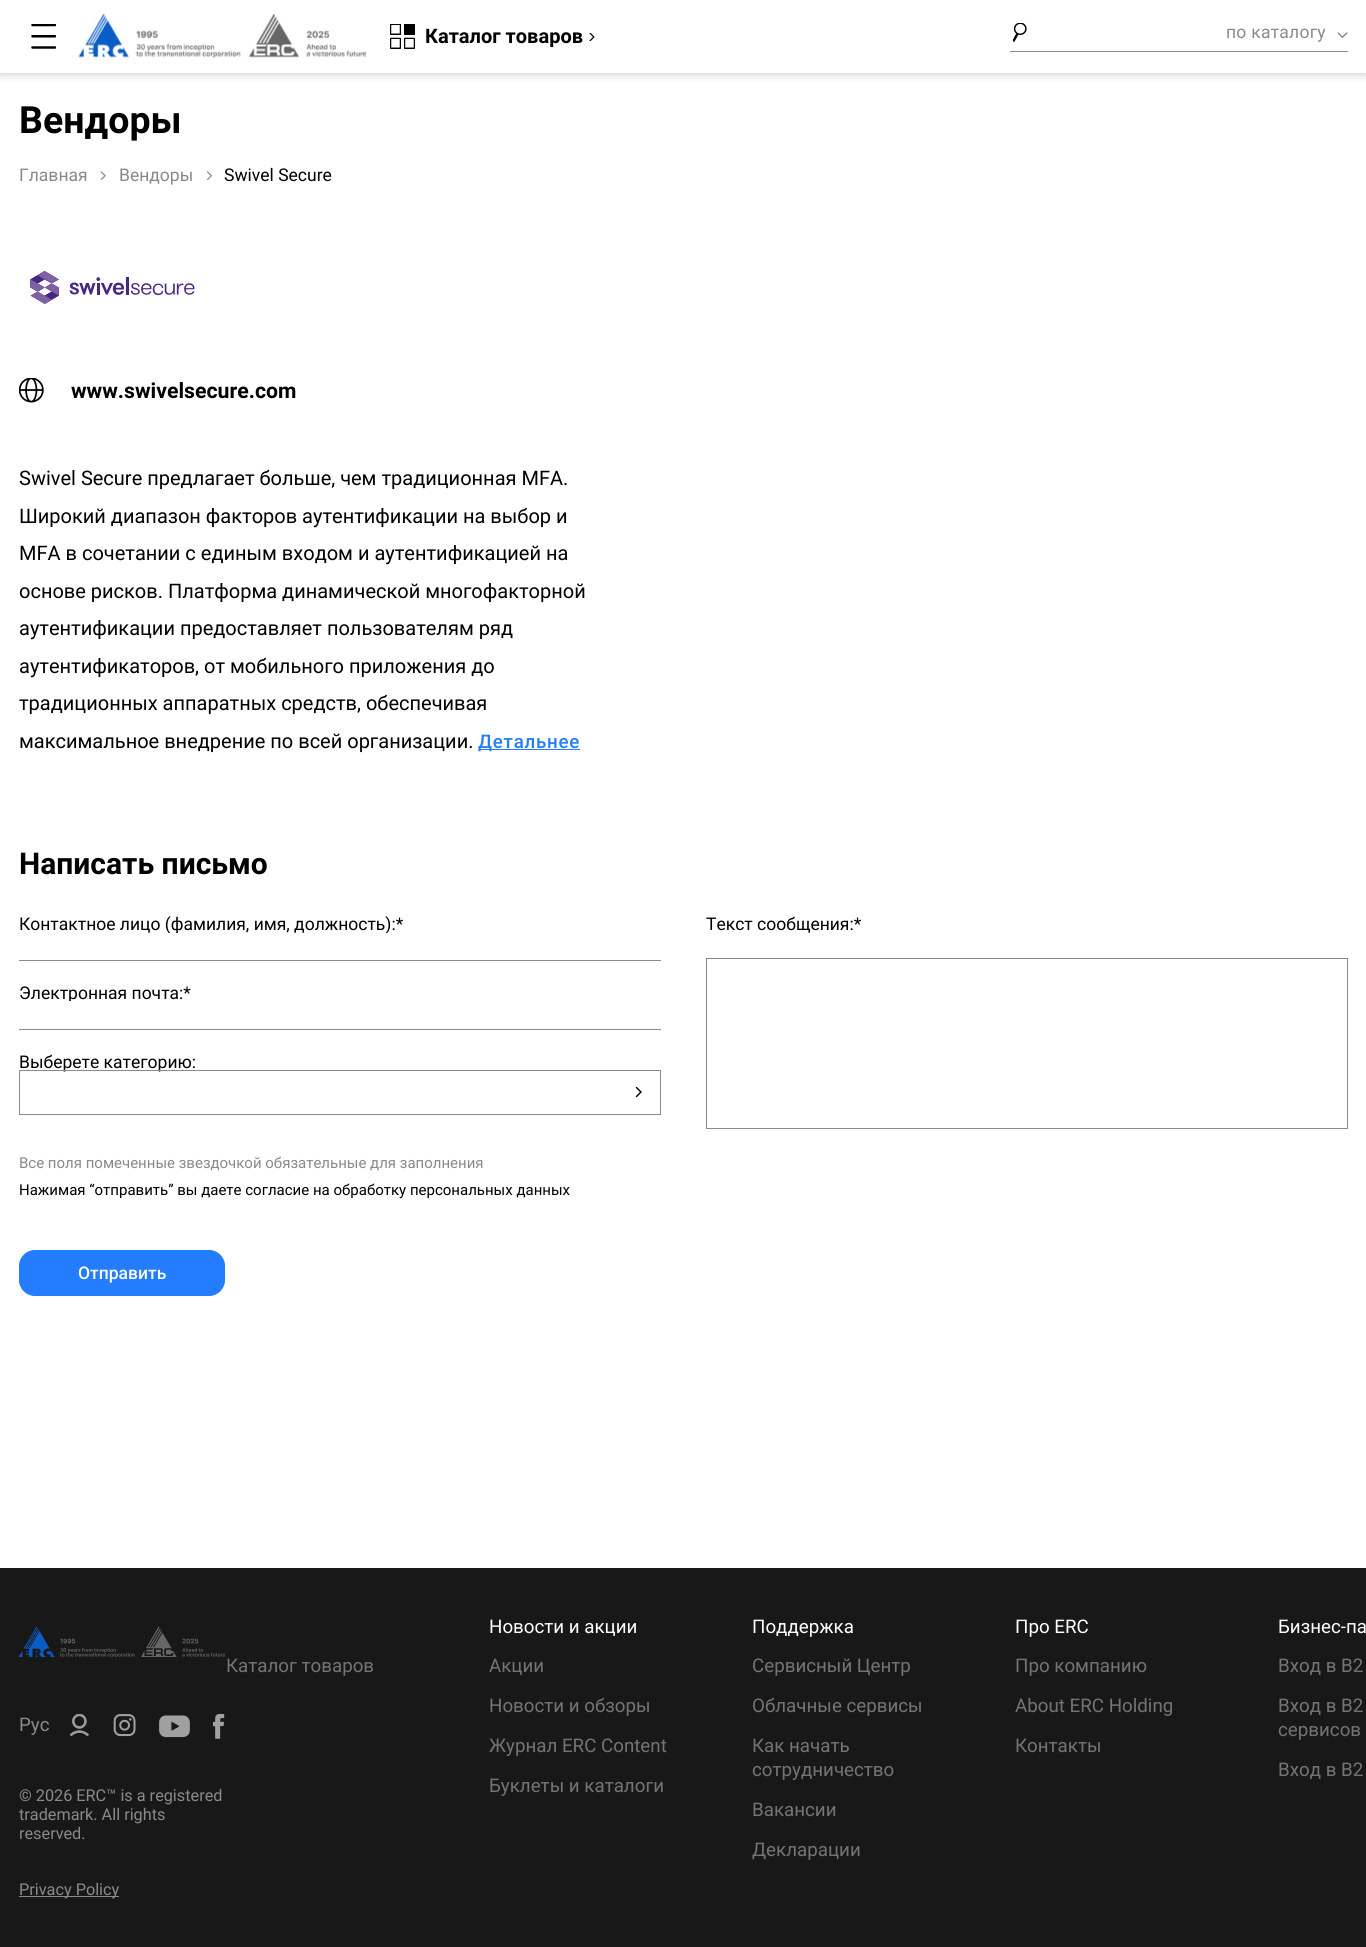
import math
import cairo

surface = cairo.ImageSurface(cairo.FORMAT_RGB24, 1366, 1947)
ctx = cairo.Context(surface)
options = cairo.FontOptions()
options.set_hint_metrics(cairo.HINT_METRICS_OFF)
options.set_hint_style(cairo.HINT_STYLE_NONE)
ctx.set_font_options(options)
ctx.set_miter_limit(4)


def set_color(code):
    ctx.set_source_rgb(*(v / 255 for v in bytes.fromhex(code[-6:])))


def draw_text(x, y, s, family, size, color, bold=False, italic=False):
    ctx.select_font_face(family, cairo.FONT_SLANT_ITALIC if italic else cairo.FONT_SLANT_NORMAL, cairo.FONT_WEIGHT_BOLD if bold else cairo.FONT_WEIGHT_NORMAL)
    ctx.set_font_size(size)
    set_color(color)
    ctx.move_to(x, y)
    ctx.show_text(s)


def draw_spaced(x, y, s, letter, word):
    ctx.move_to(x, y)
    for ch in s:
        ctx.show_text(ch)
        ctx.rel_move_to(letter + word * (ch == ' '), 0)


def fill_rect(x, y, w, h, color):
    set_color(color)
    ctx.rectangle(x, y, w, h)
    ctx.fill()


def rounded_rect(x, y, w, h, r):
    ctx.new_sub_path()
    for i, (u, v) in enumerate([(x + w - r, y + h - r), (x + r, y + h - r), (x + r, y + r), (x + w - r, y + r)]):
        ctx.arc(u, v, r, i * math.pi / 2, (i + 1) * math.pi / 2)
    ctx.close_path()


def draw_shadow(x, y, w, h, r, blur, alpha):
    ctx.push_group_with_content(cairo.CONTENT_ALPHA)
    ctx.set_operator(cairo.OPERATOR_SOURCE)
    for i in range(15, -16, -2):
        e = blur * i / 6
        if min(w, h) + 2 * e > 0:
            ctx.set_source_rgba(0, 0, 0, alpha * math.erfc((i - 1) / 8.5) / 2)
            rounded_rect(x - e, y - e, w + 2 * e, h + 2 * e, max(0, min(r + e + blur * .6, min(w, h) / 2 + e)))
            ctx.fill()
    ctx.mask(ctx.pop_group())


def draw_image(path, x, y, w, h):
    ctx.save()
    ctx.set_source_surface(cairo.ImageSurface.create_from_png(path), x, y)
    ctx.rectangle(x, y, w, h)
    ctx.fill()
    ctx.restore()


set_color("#ffffff")
ctx.paint()
set_color("#000000")
draw_shadow(0, 0, 1366, 73, 0, 5, 0.25)
fill_rect(0, 0, 1366, 73, "#ffffff")
draw_image("assets/img1.png", 31, 24, 25, 25)
draw_image("assets/img2.png", 78, 13, 289, 45)
rounded_rect(390.5, 24.5, 10, 10, 0.5)
set_color("#000000")
ctx.set_line_width(1)
ctx.stroke()
rounded_rect(404, 24, 11, 11, 1)
ctx.fill()
rounded_rect(404.5, 38.5, 10, 10, 0.5)
ctx.stroke()
rounded_rect(390.5, 38.5, 10, 10, 0.5)
ctx.stroke()
draw_image("assets/img3.png", 390, 24, 25, 25)
draw_text(425, 43, "Каталог товаров", "Roboto", 20, "#000000", bold=True)
draw_image("assets/img4.png", 589, 33, 6, 8)
fill_rect(1010, 51, 338, 1, "#8a8a8a")
draw_image("assets/img5.png", 1013, 23, 14, 19)
ctx.select_font_face("Roboto")
ctx.set_font_size(17.5)
draw_spaced(1226, 38, "по каталогу", 0.25, 0)
draw_image("assets/img6.png", 1337, 32, 11, 6)
draw_text(19, 133, "Вендоры", "Roboto", 37.5, "#000000", bold=True)
draw_text(19, 181, "Главная", "Roboto", 17.5, "#8a8a8a")
draw_image("assets/img7.png", 100, 171, 6, 9)
draw_text(119, 181, "Вендоры", "Roboto", 17.5, "#8a8a8a")
draw_image("assets/img8.png", 207, 171, 5, 9)
draw_text(224, 181, "Swivel Secure", "Roboto", 17.5, "#000000")
draw_image("assets/img9.png", 30, 271, 165, 33)
draw_image("assets/img10.png", 19, 378, 25, 25)
draw_text(71, 398, "www.swivelsecure.com", "Roboto", 21.25, "#000000", bold=True)
draw_text(19, 485, "Swivel Secure предлагает больше, чем традиционная MFA.", "Roboto", 20, "#000000")
draw_text(19, 523, "Широкий диапазон факторов аутентификации на выбор и", "Roboto", 20, "#000000")
draw_text(19, 560, "MFA в сочетании с единым входом и аутентификацией на", "Roboto", 20, "#000000")
draw_text(19, 598, "основе рисков. Платформа динамической многофакторной", "Roboto", 20, "#000000")
draw_text(19, 635, "аутентификации предоставляет пользователям ряд", "Roboto", 20, "#000000")
draw_text(19, 673, "аутентификаторов, от мобильного приложения до", "Roboto", 20, "#000000")
draw_text(19, 710, "традиционных аппаратных средств, обеспечивая", "Roboto", 20, "#000000")
draw_text(19, 748, "максимальное внедрение по всей организации.", "Roboto", 20, "#000000")
fill_rect(479, 749, 101, 1, "#247cff")
ctx.select_font_face("Roboto Medium")
ctx.set_font_size(18.75)
draw_spaced(478, 748, "Детальнее", 0.75, 0)
draw_text(19, 874, "Написать письмо", "Roboto", 30, "#000000", bold=True)
draw_text(19, 930, "Контактное лицо (фамилия, имя, должность):*", "Roboto", 17.5, "#000000")
fill_rect(168, 933, 219, 1, "#ffffff")
fill_rect(19, 960, 642, 1, "#8a8a8a")
draw_text(19, 999, "Электронная почта:*", "Roboto", 17.5, "#000000")
fill_rect(69, 1001, 2, 2, "#ffffff")
fill_rect(19, 1029, 642, 1, "#8a8a8a")
draw_text(19, 1068, "Выберете категорию:", "Roboto", 17.5, "#000000")
ctx.rectangle(19.5, 1070.5, 641, 44)
set_color("#8a8a8a")
ctx.stroke()
draw_image("assets/img11.png", 635, 1087, 7, 11)
draw_text(706, 930, "Текст сообщения:*", "Roboto", 17.5, "#000000")
ctx.rectangle(706.5, 958.5, 641, 170)
set_color("#8a8a8a")
ctx.stroke()
draw_text(19, 1168, "Все поля помеченные звездочкой обязательные для заполнения", "Roboto", 15, "#8a8a8a")
draw_text(19, 1195, "Нажимая “отправить” вы даете согласие на обработку персональных данных", "Roboto", 15, "#000000")
set_color("#247cff")
rounded_rect(19.5, 1250.5, 205, 45, 15.5)
ctx.fill_preserve()
ctx.stroke()
draw_text(78, 1279, "Отправить", "Roboto Medium", 17.5, "#ffffff")
fill_rect(0, 1568, 1366, 379, "#181818")
draw_image("assets/img12.png", 19, 1626, 206, 32)
draw_text(19, 1731, "Рус", "Roboto", 18.75, "#8a8a8a")
draw_image("assets/img13.png", 70, 1714, 19, 22)
draw_image("assets/img14.png", 113, 1714, 23, 23)
draw_image("assets/img15.png", 159, 1715, 31, 23)
draw_image("assets/img16.png", 213, 1714, 12, 25)
draw_text(19, 1801, "© 2026 ERC™ is a registered", "Roboto", 16.25, "#8a8a8a")
draw_text(19, 1820, "trademark. All rights", "Roboto", 16.25, "#8a8a8a")
draw_text(19, 1839, "reserved.", "Roboto", 16.25, "#8a8a8a")
fill_rect(19, 1896, 100, 1, "#8a8a8a")
draw_text(19, 1895, "Privacy Policy", "Roboto", 16.25, "#8a8a8a")
draw_text(226, 1672, "Каталог товаров", "Roboto", 18.75, "#747474")
draw_text(489, 1633, "Новости и акции", "Roboto", 18.75, "#ffffff")
draw_text(489, 1672, "Акции", "Roboto", 18.75, "#747474")
draw_text(489, 1712, "Новости и обзоры", "Roboto", 18.75, "#747474")
draw_text(489, 1752, "Журнал ERC Content", "Roboto", 18.75, "#747474")
draw_text(489, 1792, "Буклеты и каталоги", "Roboto", 18.75, "#747474")
draw_text(752, 1633, "Поддержка", "Roboto", 18.75, "#ffffff")
draw_text(752, 1672, "Сервисный Центр", "Roboto", 18.75, "#747474")
draw_text(752, 1712, "Облачные сервисы", "Roboto", 18.75, "#747474")
draw_text(752, 1752, "Как начать", "Roboto", 18.75, "#747474")
draw_text(752, 1776, "сотрудничество", "Roboto", 18.75, "#747474")
draw_text(752, 1816, "Вакансии", "Roboto", 18.75, "#747474")
draw_text(752, 1856, "Декларации", "Roboto", 18.75, "#747474")
draw_text(1015, 1633, "Про ERC", "Roboto", 18.75, "#ffffff")
draw_text(1015, 1672, "Про компанию", "Roboto", 18.75, "#747474")
draw_text(1015, 1712, "About ERC Holding", "Roboto", 18.75, "#747474")
draw_text(1015, 1752, "Контакты", "Roboto", 18.75, "#747474")
draw_text(1278, 1633, "Бизнес-па", "Roboto", 18.75, "#ffffff")
draw_text(1278, 1672, "Вход в B2", "Roboto", 18.75, "#747474")
draw_text(1278, 1712, "Вход в B2", "Roboto", 18.75, "#747474")
draw_text(1278, 1736, "сервисов", "Roboto", 18.75, "#747474")
draw_text(1278, 1776, "Вход в B2", "Roboto", 18.75, "#747474")
surface.write_to_png("output.png")
